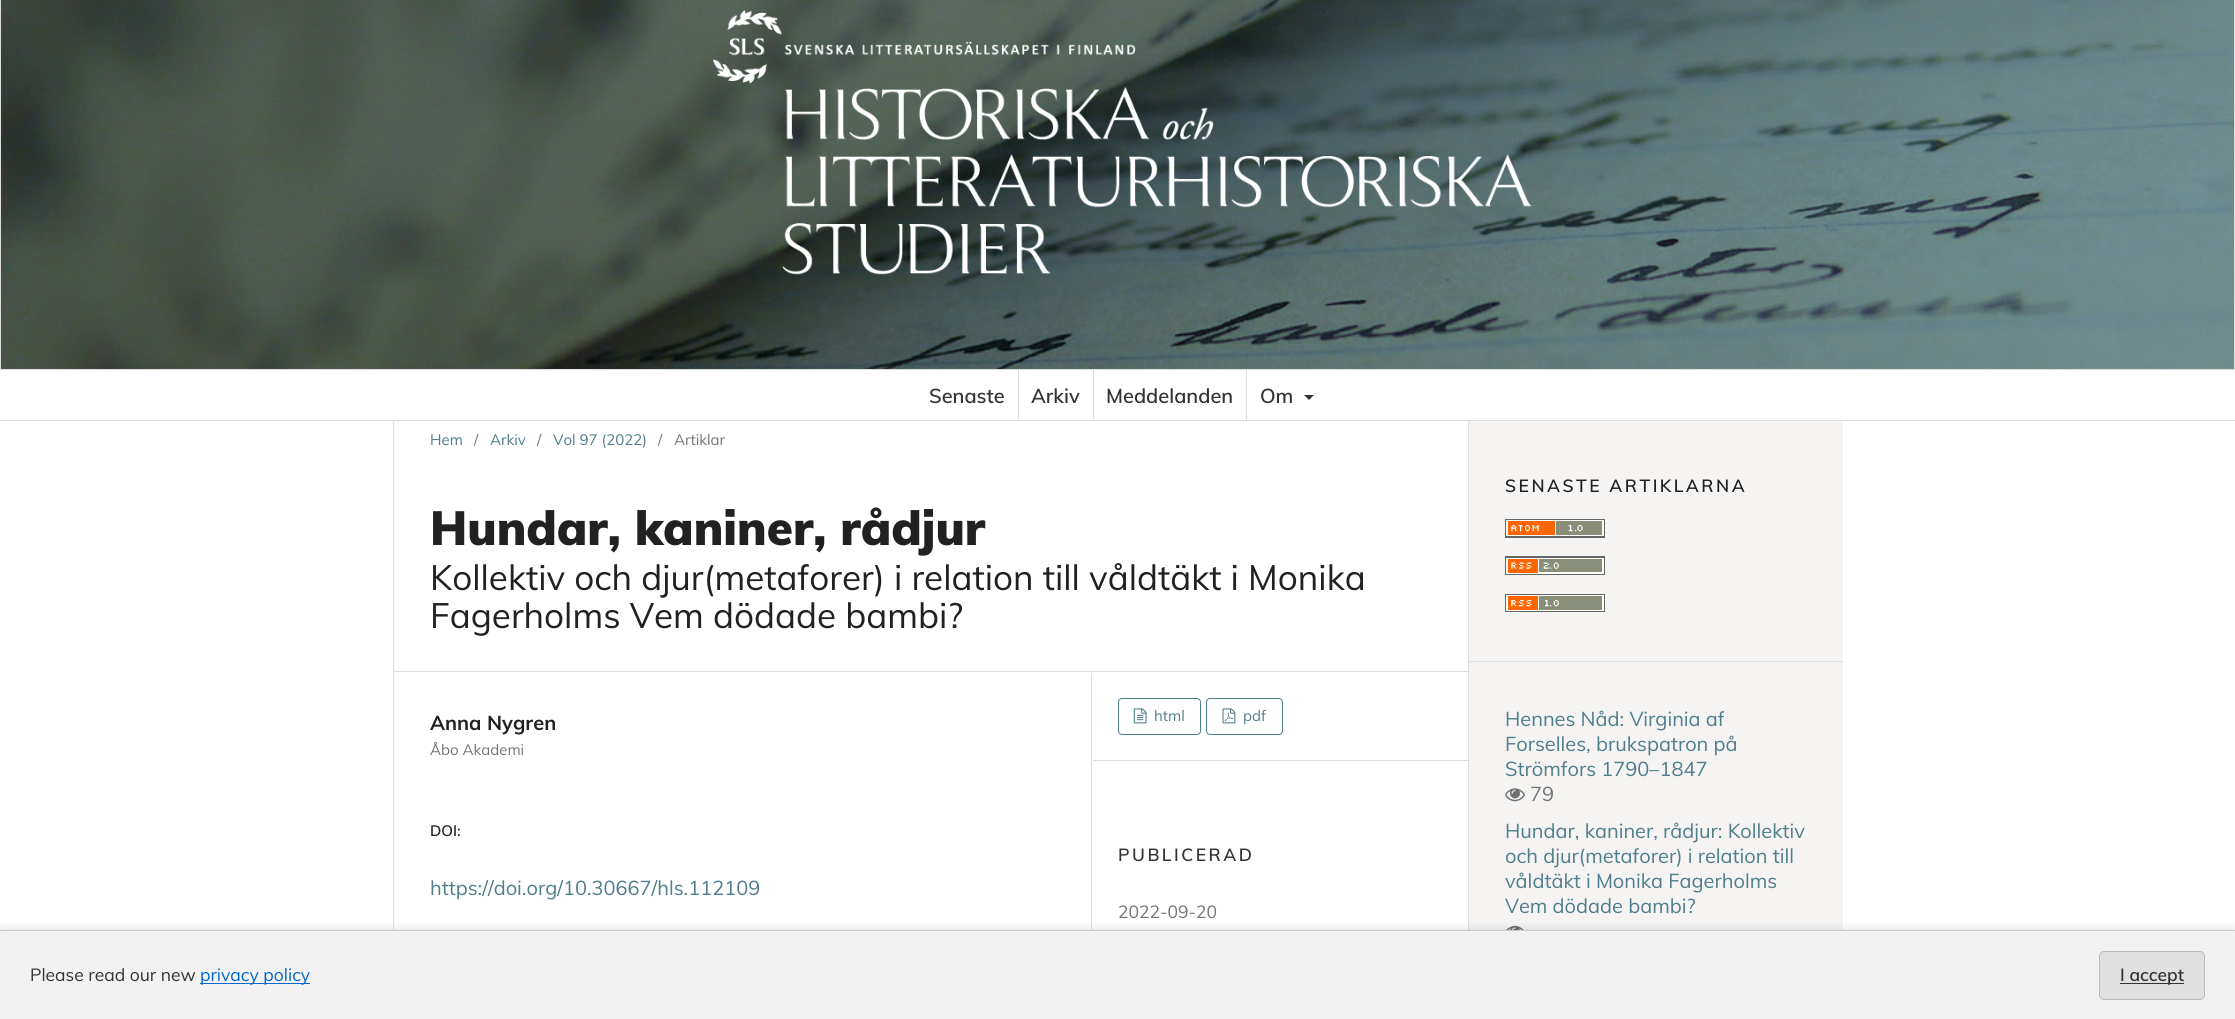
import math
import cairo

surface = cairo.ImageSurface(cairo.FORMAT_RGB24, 2235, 1019)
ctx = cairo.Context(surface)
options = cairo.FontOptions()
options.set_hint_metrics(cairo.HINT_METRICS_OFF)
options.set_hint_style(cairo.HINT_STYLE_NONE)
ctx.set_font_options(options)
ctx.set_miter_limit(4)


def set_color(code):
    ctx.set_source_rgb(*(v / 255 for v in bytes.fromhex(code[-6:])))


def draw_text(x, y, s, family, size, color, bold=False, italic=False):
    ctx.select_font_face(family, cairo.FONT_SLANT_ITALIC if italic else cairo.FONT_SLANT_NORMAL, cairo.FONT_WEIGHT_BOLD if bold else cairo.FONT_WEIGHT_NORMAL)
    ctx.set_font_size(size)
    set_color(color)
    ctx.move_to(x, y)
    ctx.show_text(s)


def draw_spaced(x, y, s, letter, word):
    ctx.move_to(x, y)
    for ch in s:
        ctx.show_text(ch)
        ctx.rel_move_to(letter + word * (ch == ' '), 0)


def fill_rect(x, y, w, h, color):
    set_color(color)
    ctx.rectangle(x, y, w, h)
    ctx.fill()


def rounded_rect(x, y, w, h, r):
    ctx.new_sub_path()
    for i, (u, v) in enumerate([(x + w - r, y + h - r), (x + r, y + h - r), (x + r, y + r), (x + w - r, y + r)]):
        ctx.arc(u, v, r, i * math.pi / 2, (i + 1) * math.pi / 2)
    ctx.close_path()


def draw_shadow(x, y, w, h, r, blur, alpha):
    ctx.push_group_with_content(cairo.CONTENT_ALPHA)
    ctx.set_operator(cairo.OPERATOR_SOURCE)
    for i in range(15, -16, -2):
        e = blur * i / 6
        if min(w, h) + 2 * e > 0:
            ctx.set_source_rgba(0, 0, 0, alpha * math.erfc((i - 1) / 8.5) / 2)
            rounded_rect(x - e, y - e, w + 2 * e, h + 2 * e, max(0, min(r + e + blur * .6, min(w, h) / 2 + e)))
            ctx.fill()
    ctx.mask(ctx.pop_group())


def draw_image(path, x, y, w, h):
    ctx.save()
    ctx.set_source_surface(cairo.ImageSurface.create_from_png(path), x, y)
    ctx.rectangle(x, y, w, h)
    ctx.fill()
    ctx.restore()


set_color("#ffffff")
ctx.paint()
draw_image("assets/img1.png", 1, 0, 2233, 369)
ctx.rectangle(0.5, -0.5, 2234, 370)
set_color("#dddddd")
ctx.set_line_width(1)
ctx.stroke()
draw_image("assets/img2.png", 713, 10, 819, 265)
fill_rect(0, 420, 2235, 1, "#dddddd")
fill_rect(1018, 370, 1, 50, "#dddddd")
draw_text(929, 403, "Senaste", "Muli SemiBold", 20, "#333333")
fill_rect(1093, 370, 1, 50, "#dddddd")
draw_text(1031, 403, "Arkiv", "Muli SemiBold", 20, "#333333")
fill_rect(1246, 370, 1, 50, "#dddddd")
draw_text(1106, 403, "Meddelanden", "Muli SemiBold", 20, "#333333")
draw_text(1260, 403, "Om", "Muli SemiBold", 20, "#333333")
ctx.new_path()
ctx.move_to(1304, 395)
ctx.line_to(1314, 395)
ctx.line_to(1309, 400)
ctx.close_path()
ctx.fill()
fill_rect(393, 671, 1075, 1, "#dddddd")
fill_rect(393, 421, 1, 509, "#dddddd")
draw_text(430, 445, "Hem", "Muli", 15, "#4f7d8c")
draw_text(474, 445, "/", "Muli", 15, "#757575")
draw_text(490, 445, "Arkiv", "Muli", 15, "#4f7d8c")
draw_text(537, 445, "/", "Muli", 15, "#757575")
draw_text(553, 445, "Vol 97 (2022)", "Muli", 15, "#4f7d8c")
draw_text(658, 445, "/", "Muli", 15, "#757575")
draw_text(674, 445, "Artiklar", "Muli", 15, "#757575")
draw_text(430, 545, "Hundar, kaniner, rådjur", "Muli Black", 47.5, "#212121")
draw_text(430, 590, "Kollektiv och djur(metaforer) i relation till våldtäkt i Monika", "Muli", 35, "#212121")
draw_text(430, 628, "Fagerholms Vem dödade bambi?", "Muli", 35, "#212121")
fill_rect(1091, 673, 1, 257, "#dddddd")
draw_text(430, 730, "Anna Nygren", "Muli", 20, "#212121", bold=True)
draw_text(430, 755, "Åbo Akademi", "Muli", 15, "#757575")
draw_text(430, 836, "DOI:", "Muli SemiBold", 15, "#212121")
draw_text(430, 895, "https://doi.org/10.30667/hls.112109", "Muli", 20, "#4f7d8c")
fill_rect(1093, 760, 375, 1, "#dddddd")
rounded_rect(1118.5, 698.5, 82, 36, 3.5)
set_color("#4f7d8c")
ctx.stroke()
draw_image("assets/img3.png", 1133, 708, 14, 16)
draw_text(1154, 721, "html", "Muli", 15, "#4f7d8c")
rounded_rect(1206.5, 698.5, 76, 36, 3.5)
ctx.stroke()
draw_image("assets/img4.png", 1222, 708, 14, 16)
draw_text(1243, 721, "pdf", "Muli", 15, "#4f7d8c")
ctx.select_font_face("Muli SemiBold")
ctx.set_font_size(17.5)
set_color("#333333")
draw_spaced(1118, 861, "PUBLICERAD", 2.5, 0)
draw_text(1118, 918, "2022-09-20", "Muli", 17.5, "#757575")
fill_rect(1469, 421, 374, 509, "#f5f4f3")
fill_rect(1468, 661, 375, 1, "#dddddd")
fill_rect(1468, 421, 1, 509, "#dddddd")
ctx.select_font_face("Muli SemiBold")
set_color("#212121")
draw_spaced(1505, 492, "SENASTE ARTIKLARNA", 2.5, 0)
draw_image("assets/img5.png", 1505, 519, 100, 19)
draw_image("assets/img6.png", 1505, 556, 100, 19)
draw_image("assets/img7.png", 1505, 594, 100, 18)
draw_text(1505, 726, "Hennes Nåd: Virginia af", "Muli", 20, "#4f7d8c")
draw_text(1505, 751, "Forselles, brukspatron på", "Muli", 20, "#4f7d8c")
draw_text(1505, 776, "Strömfors 1790–1847", "Muli", 20, "#4f7d8c")
draw_image("assets/img8.png", 1505, 788, 20, 14)
draw_text(1530, 801, "79", "Muli", 20, "#757575")
draw_text(1505, 838, "Hundar, kaniner, rådjur: Kollektiv", "Muli", 20, "#4f7d8c")
draw_text(1505, 863, "och djur(metaforer) i relation till", "Muli", 20, "#4f7d8c")
draw_text(1505, 888, "våldtäkt i Monika Fagerholms", "Muli", 20, "#4f7d8c")
draw_text(1505, 913, "Vem dödade bambi?", "Muli", 20, "#4f7d8c")
draw_image("assets/img9.png", 1506, 925, 18, 5)
set_color("#000000")
draw_shadow(0, 928, 2235, 90, 0, 4, 0.1)
fill_rect(0, 931, 2235, 88, "#f2f2f2")
fill_rect(0, 930, 2235, 1, "#cccccc")
draw_text(30, 981, "Please read our new", "Muli", 17.5, "#333333")
fill_rect(200, 983, 110, 1, "#0066cc")
draw_text(200, 981, "privacy policy", "Muli", 17.5, "#0066cc")
set_color("#e0e0e0")
rounded_rect(2099.5, 951.5, 105, 48, 4.5)
ctx.fill_preserve()
set_color("#bbbbbb")
ctx.stroke()
fill_rect(2120, 983, 64, 1, "#333333")
draw_text(2120, 981, "I accept", "Muli SemiBold", 17.5, "#333333")
surface.write_to_png("output.png")
